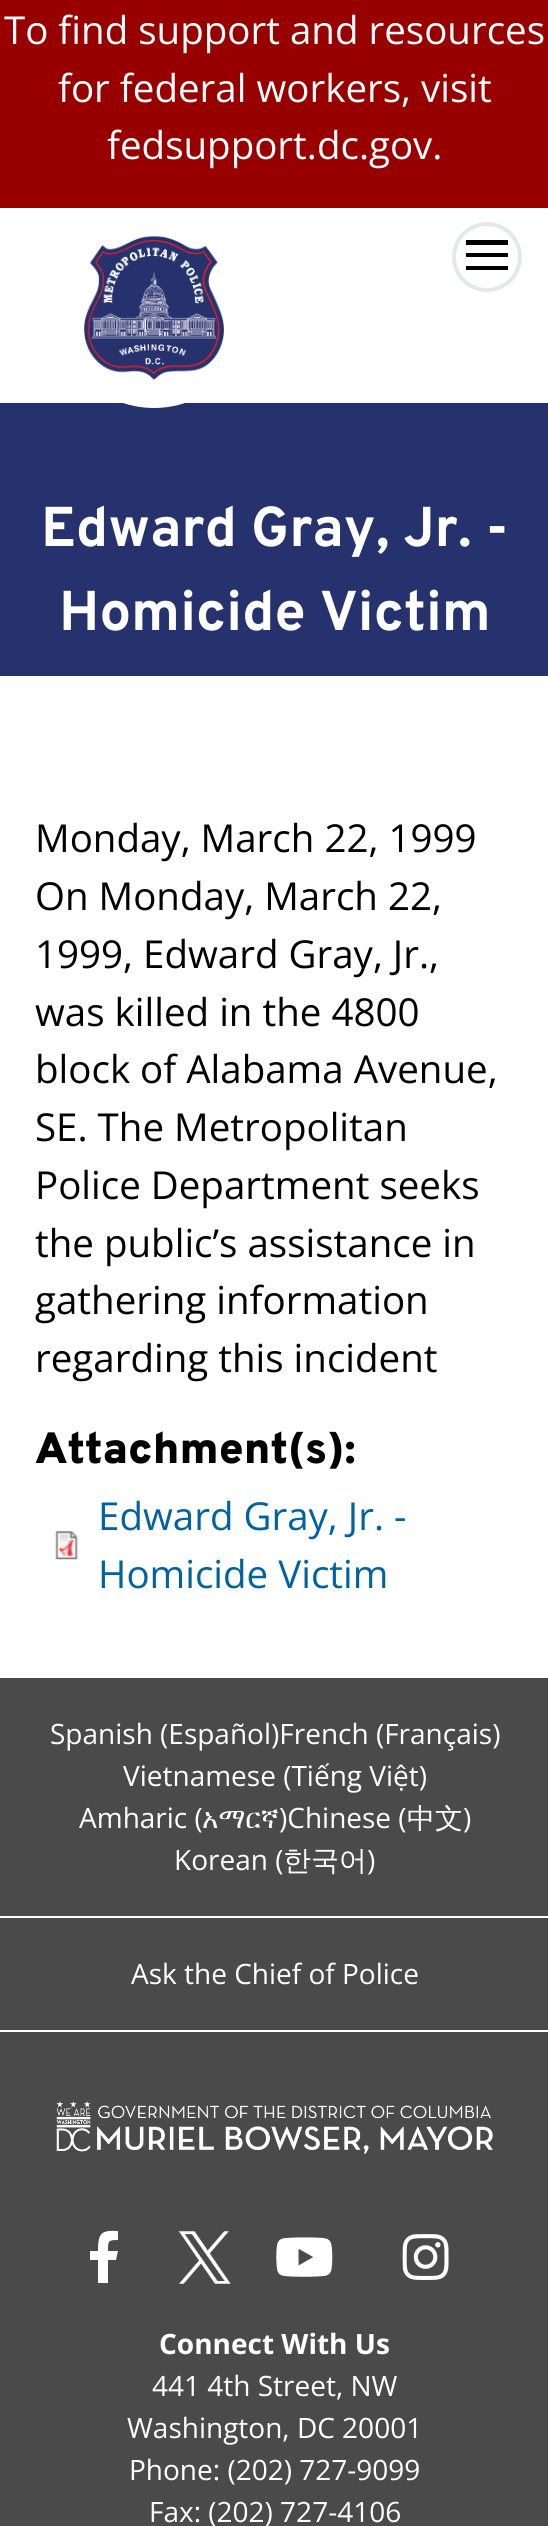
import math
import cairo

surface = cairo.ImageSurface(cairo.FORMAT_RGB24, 548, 2526)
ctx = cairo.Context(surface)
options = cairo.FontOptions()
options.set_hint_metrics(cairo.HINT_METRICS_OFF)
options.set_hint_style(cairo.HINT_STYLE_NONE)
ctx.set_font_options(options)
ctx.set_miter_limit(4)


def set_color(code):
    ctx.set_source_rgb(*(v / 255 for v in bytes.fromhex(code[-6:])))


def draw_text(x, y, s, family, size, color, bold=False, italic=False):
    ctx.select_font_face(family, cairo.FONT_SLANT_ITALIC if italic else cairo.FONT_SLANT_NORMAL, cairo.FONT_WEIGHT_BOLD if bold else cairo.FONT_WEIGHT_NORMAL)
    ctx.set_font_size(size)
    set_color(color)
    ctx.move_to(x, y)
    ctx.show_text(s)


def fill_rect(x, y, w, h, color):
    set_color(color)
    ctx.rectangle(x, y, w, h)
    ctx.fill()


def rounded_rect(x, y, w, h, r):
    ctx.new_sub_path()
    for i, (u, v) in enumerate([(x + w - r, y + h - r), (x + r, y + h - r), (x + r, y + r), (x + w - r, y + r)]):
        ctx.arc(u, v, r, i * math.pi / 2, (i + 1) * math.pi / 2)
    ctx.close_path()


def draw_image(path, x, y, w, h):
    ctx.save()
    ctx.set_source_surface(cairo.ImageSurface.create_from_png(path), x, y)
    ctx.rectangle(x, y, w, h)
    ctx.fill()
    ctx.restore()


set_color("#ffffff")
ctx.paint()
fill_rect(0, 0, 548, 208, "#980000")
draw_text(4, 44, "To find support and resources", "Open Sans", 38.5, "#ffffff")
draw_text(58, 102, "for federal workers, visit", "Open Sans", 38.5, "#ffffff")
draw_text(107, 159, "fedsupport.dc.gov.", "Open Sans", 38.5, "#ffffff")
fill_rect(0, 403, 548, 273, "#26326e")
set_color("#ffffff")
rounded_rect(56, 208, 196, 200, 98)
ctx.fill()
draw_image("assets/img1.png", 84, 236, 140, 144)
ctx.arc(487, 257, 33, 0, 2 * math.pi)
set_color("#e5e7eb")
ctx.set_line_width(4)
ctx.stroke()
fill_rect(466, 240, 42, 5, "#000000")
fill_rect(466, 253, 42, 4, "#000000")
fill_rect(466, 266, 42, 4, "#000000")
draw_text(41, 546, "Edward Gray, Jr. -", "Overpass", 56, "#ffffff", bold=True)
draw_text(59, 630, "Homicide Victim", "Overpass", 56, "#ffffff", bold=True)
draw_text(35, 852, "Monday, March 22, 1999", "Open Sans", 38.5, "#000000")
draw_text(35, 910, "On Monday, March 22,", "Open Sans", 38.5, "#000000")
draw_text(35, 968, "1999, Edward Gray, Jr.,", "Open Sans", 38.5, "#000000")
draw_text(35, 1026, "was killed in the 4800", "Open Sans", 38.5, "#000000")
draw_text(35, 1083, "block of Alabama Avenue,", "Open Sans", 38.5, "#000000")
draw_text(35, 1141, "SE. The Metropolitan", "Open Sans", 38.5, "#000000")
draw_text(35, 1199, "Police Department seeks", "Open Sans", 38.5, "#000000")
draw_text(35, 1257, "the public’s assistance in", "Open Sans", 38.5, "#000000")
draw_text(35, 1314, "gathering information", "Open Sans", 38.5, "#000000")
draw_text(35, 1372, "regarding this incident", "Open Sans", 38.5, "#000000")
draw_text(35, 1463, "Attachment(s):", "Overpass Black", 43.75, "#000000")
draw_image("assets/img2.png", 55, 1531, 23, 29)
draw_text(98, 1530, "Edward Gray, Jr. -", "Open Sans", 38.5, "#0062a0")
draw_text(98, 1588, "Homicide Victim", "Open Sans", 38.5, "#0062a0")
fill_rect(0, 1678, 548, 848, "#4a4a4a")
fill_rect(0, 1916, 548, 2, "#ffffff")
draw_text(50, 1744, "Spanish (Español)French (Français)", "Open Sans", 28, "#ffffff")
draw_text(123, 1786, "Vietnamese (Tiếng Việt)", "Open Sans", 28, "#ffffff")
draw_text(79, 1828, "Amharic (", "Open Sans", 28, "#ffffff")
draw_text(202, 1828, "አማርኛ", "FreeSerif", 28, "#ffffff")
draw_text(279, 1828, ")Chinese (", "Open Sans", 28, "#ffffff")
draw_text(407, 1828, "中文", "WenQuanYi Zen Hei Medium", 28, "#ffffff")
draw_text(463, 1828, ")", "Open Sans", 28, "#ffffff")
draw_text(174, 1870, "Korean (", "Open Sans", 28, "#ffffff")
draw_text(283, 1870, "한국어", "WenQuanYi Zen Hei Medium", 28, "#ffffff")
draw_text(367, 1870, ")", "Open Sans", 28, "#ffffff")
fill_rect(0, 2030, 548, 2, "#ffffff")
draw_text(131, 1984, "Ask the Chief of Police", "Open Sans", 28, "#ffffff")
draw_image("assets/img3.png", 56, 2101, 437, 53)
ctx.new_path()
ctx.move_to(116, 2260)
ctx.line_to(108, 2260)
ctx.line_to(108, 2283)
ctx.line_to(98, 2283)
ctx.line_to(98, 2260)
ctx.line_to(90, 2260)
ctx.line_to(90, 2251)
ctx.line_to(98, 2251)
ctx.curve_to(98, 2233, 101, 2230, 118, 2231)
ctx.line_to(118, 2240)
ctx.curve_to(108, 2240, 108, 2241, 108, 2251)
ctx.line_to(118, 2251)
ctx.close_path()
ctx.fill()
draw_image("assets/img4.png", 178, 2231, 53, 53)
draw_image("assets/img5.png", 276, 2237, 57, 40)
draw_image("assets/img6.png", 402, 2234, 47, 46)
draw_text(159, 2354, "Connect With Us", "Open Sans", 28, "#ffffff", bold=True)
draw_text(152, 2396, "441 4th Street, NW", "Open Sans", 28, "#ffffff")
draw_text(127, 2438, "Washington, DC 20001", "Open Sans", 28, "#ffffff")
draw_text(129, 2480, "Phone: (202) 727-9099", "Open Sans", 28, "#ffffff")
draw_text(149, 2522, "Fax: (202) 727-4106", "Open Sans", 28, "#ffffff")
surface.write_to_png("output.png")
